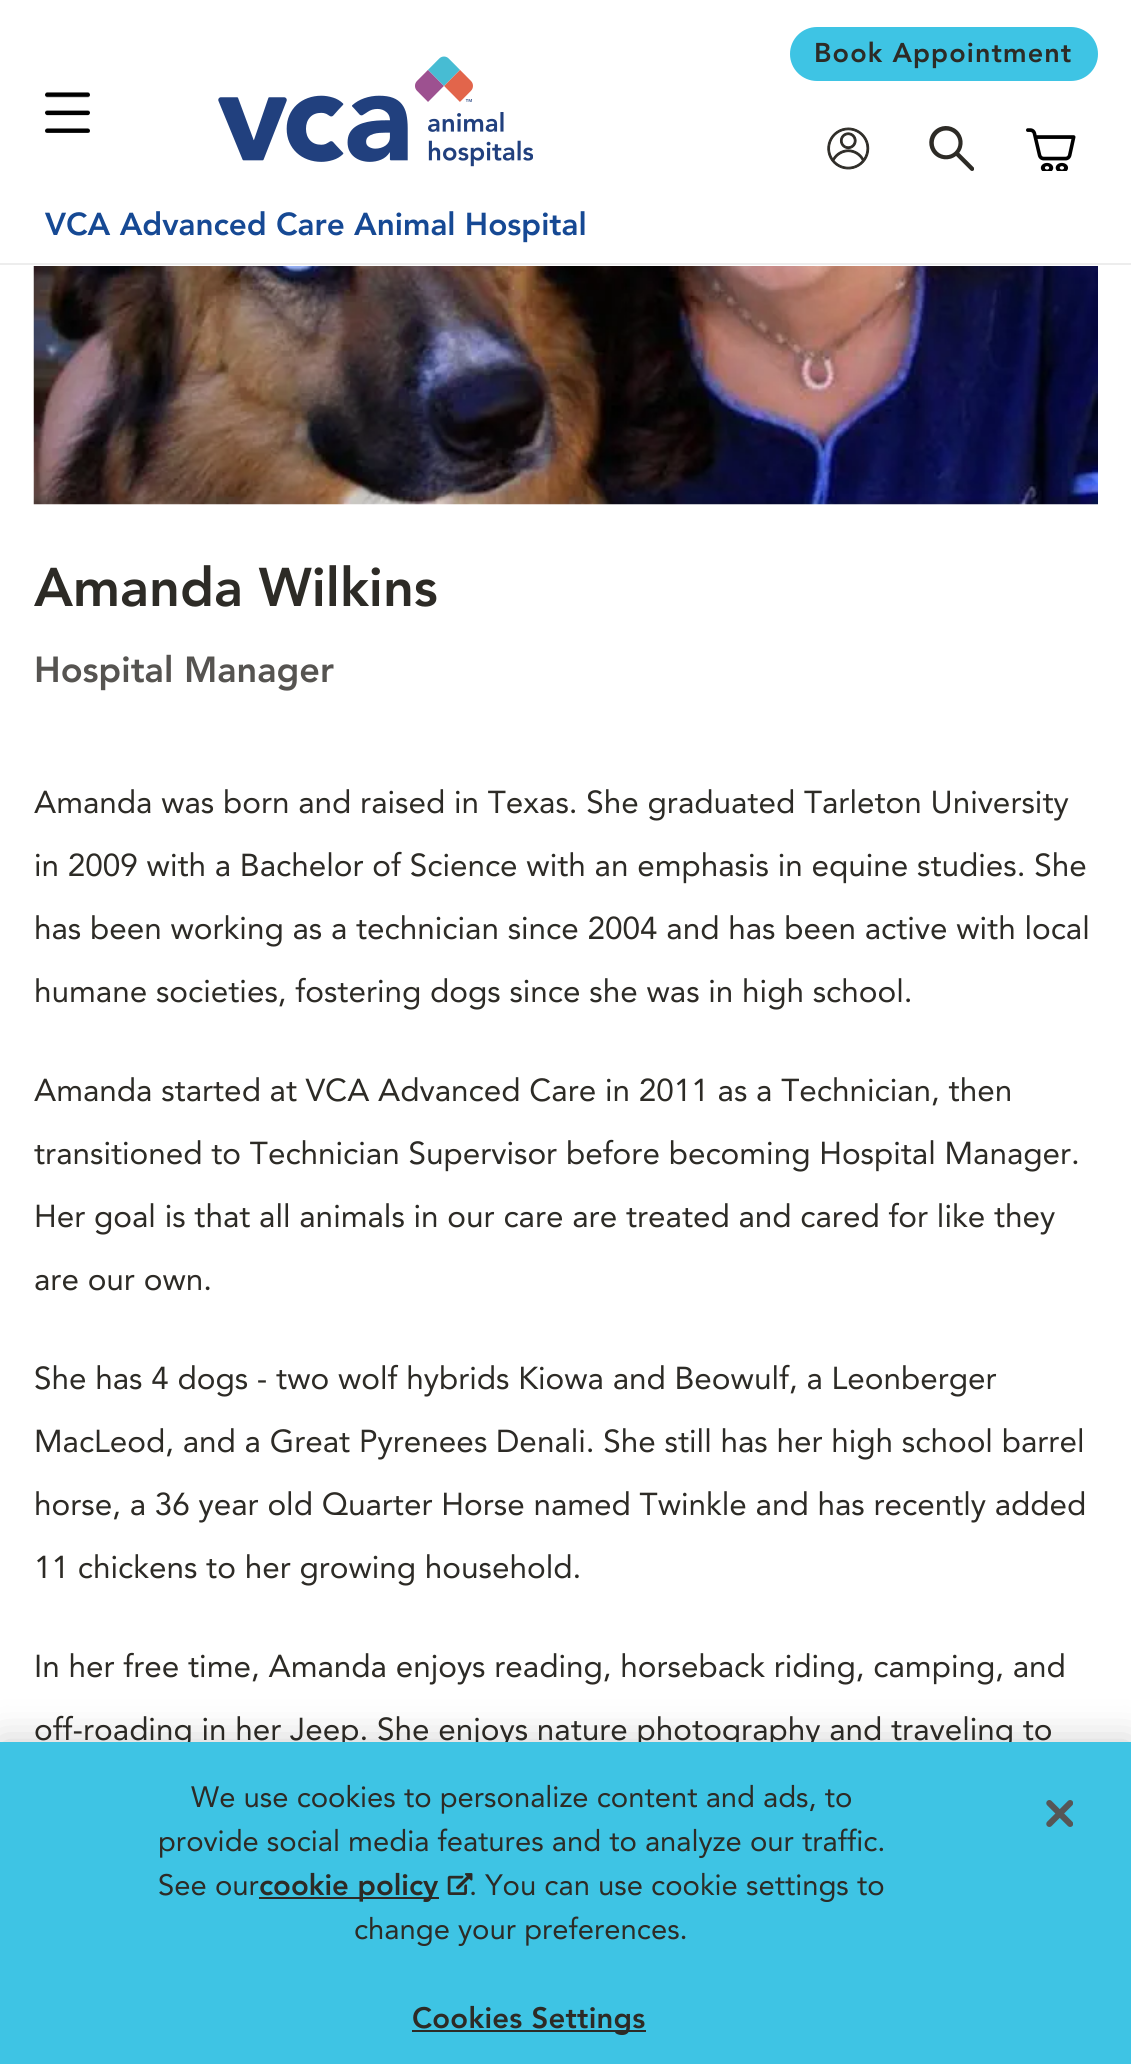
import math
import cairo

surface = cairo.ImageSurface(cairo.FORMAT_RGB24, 1131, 2064)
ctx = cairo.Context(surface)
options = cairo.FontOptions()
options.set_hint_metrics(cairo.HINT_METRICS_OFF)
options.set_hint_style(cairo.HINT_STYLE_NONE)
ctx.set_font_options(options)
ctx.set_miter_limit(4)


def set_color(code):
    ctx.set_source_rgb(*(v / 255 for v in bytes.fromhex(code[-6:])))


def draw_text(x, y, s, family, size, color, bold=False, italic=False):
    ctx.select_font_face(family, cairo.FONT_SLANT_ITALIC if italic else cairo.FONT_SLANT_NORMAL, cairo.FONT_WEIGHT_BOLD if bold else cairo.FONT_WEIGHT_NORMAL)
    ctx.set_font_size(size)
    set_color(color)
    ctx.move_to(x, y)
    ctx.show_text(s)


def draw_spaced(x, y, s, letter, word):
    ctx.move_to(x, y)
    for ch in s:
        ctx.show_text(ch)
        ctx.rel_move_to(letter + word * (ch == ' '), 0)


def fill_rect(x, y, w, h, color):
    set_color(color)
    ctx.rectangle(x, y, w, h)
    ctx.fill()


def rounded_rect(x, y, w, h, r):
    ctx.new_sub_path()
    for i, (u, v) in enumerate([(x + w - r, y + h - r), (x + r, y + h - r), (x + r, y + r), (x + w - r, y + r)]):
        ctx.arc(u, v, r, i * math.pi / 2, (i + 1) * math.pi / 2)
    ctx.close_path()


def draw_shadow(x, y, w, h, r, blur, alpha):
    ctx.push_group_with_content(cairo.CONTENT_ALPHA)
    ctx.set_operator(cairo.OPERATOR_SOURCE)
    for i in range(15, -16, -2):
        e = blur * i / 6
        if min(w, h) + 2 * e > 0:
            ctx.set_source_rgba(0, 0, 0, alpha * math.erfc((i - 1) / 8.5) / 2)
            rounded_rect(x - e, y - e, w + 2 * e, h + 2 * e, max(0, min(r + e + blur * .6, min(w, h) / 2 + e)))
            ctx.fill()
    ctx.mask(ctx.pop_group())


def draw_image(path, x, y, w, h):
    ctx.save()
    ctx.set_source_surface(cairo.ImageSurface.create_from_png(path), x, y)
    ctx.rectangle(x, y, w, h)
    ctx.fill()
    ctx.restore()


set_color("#ffffff")
ctx.paint()
fill_rect(0, 263, 1131, 2, "#ededed")
draw_image("assets/img1.png", 45, 92, 45, 41)
draw_image("assets/img2.png", 218, 56, 315, 111)
set_color("#3ec4e4")
rounded_rect(791, 28, 306, 52, 26)
ctx.fill_preserve()
ctx.stroke()
ctx.select_font_face("Avenir Black")
ctx.set_font_size(27)
set_color("#2d2b26")
draw_spaced(814, 62, "Book Appointment", 1.1, 0)
draw_image("assets/img3.png", 827, 127, 43, 43)
draw_image("assets/img4.png", 929, 126, 45, 45)
draw_image("assets/img5.png", 1026, 128, 50, 43)
draw_text(45, 235, "VCA Advanced Care Animal Hospital", "Avenir Black", 31.5, "#164994")
draw_image("assets/img6.png", 33, 266, 1065, 239)
draw_text(34, 606, "Amanda Wilkins", "Avenir Black", 54, "#2d2b26")
draw_text(34, 682, "Hospital Manager", "Avenir Black", 36, "#565451")
draw_text(34, 813, "Amanda was born and raised in Texas. She graduated Tarleton University", "Avenir", 31.5, "#2d2b26")
draw_text(34, 876, "in 2009 with a Bachelor of Science with an emphasis in equine studies. She", "Avenir", 31.5, "#2d2b26")
draw_text(34, 939, "has been working as a technician since 2004 and has been active with local", "Avenir", 31.5, "#2d2b26")
draw_text(34, 1002, "humane societies, fostering dogs since she was in high school.", "Avenir", 31.5, "#2d2b26")
draw_text(34, 1101, "Amanda started at VCA Advanced Care in 2011 as a Technician, then", "Avenir", 31.5, "#2d2b26")
draw_text(34, 1164, "transitioned to Technician Supervisor before becoming Hospital Manager.", "Avenir", 31.5, "#2d2b26")
draw_text(34, 1227, "Her goal is that all animals in our care are treated and cared for like they", "Avenir", 31.5, "#2d2b26")
draw_text(34, 1290, "are our own.", "Avenir", 31.5, "#2d2b26")
draw_text(34, 1389, "She has 4 dogs - two wolf hybrids Kiowa and Beowulf, a Leonberger", "Avenir", 31.5, "#2d2b26")
draw_text(34, 1452, "MacLeod, and a Great Pyrenees Denali. She still has her high school barrel", "Avenir", 31.5, "#2d2b26")
draw_text(34, 1515, "horse, a 36 year old Quarter Horse named Twinkle and has recently added", "Avenir", 31.5, "#2d2b26")
draw_text(34, 1578, "11 chickens to her growing household.", "Avenir", 31.5, "#2d2b26")
draw_text(34, 1677, "In her free time, Amanda enjoys reading, horseback riding, camping, and", "Avenir", 31.5, "#2d2b26")
draw_text(34, 1740, "off-roading in her Jeep. She enjoys nature photography and traveling to", "Avenir", 31.5, "#2d2b26")
set_color("#000000")
draw_shadow(0, 1742, 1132, 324, 0, 20, 0.2)
fill_rect(0, 1742, 1131, 322, "#3ec4e4")
draw_text(191, 1807, "We use cookies to personalize content and ads, to", "Avenir", 29.25, "#2d2b26")
draw_text(158, 1851, "provide social media features and to analyze our traffic.", "Avenir", 29.25, "#2d2b26")
draw_text(158, 1895, "See our", "Avenir", 29.25, "#2d2b26")
fill_rect(259, 1897, 180, 2, "#2d2b26")
draw_text(259, 1895, "cookie policy", "Avenir Black", 29.25, "#2d2b26")
draw_image("assets/img7.png", 447, 1873, 26, 22)
draw_text(469, 1895, ". You can use cookie settings to", "Avenir", 29.25, "#2d2b26")
draw_text(354, 1939, "change your preferences.", "Avenir", 29.25, "#2d2b26")
fill_rect(412, 2030, 234, 2, "#2d2b26")
ctx.select_font_face("Avenir Black")
draw_spaced(412, 2028, "Cookies Settings", 0.25, 0)
draw_image("assets/img8.png", 1046, 1800, 27, 27)
surface.write_to_png("output.png")
